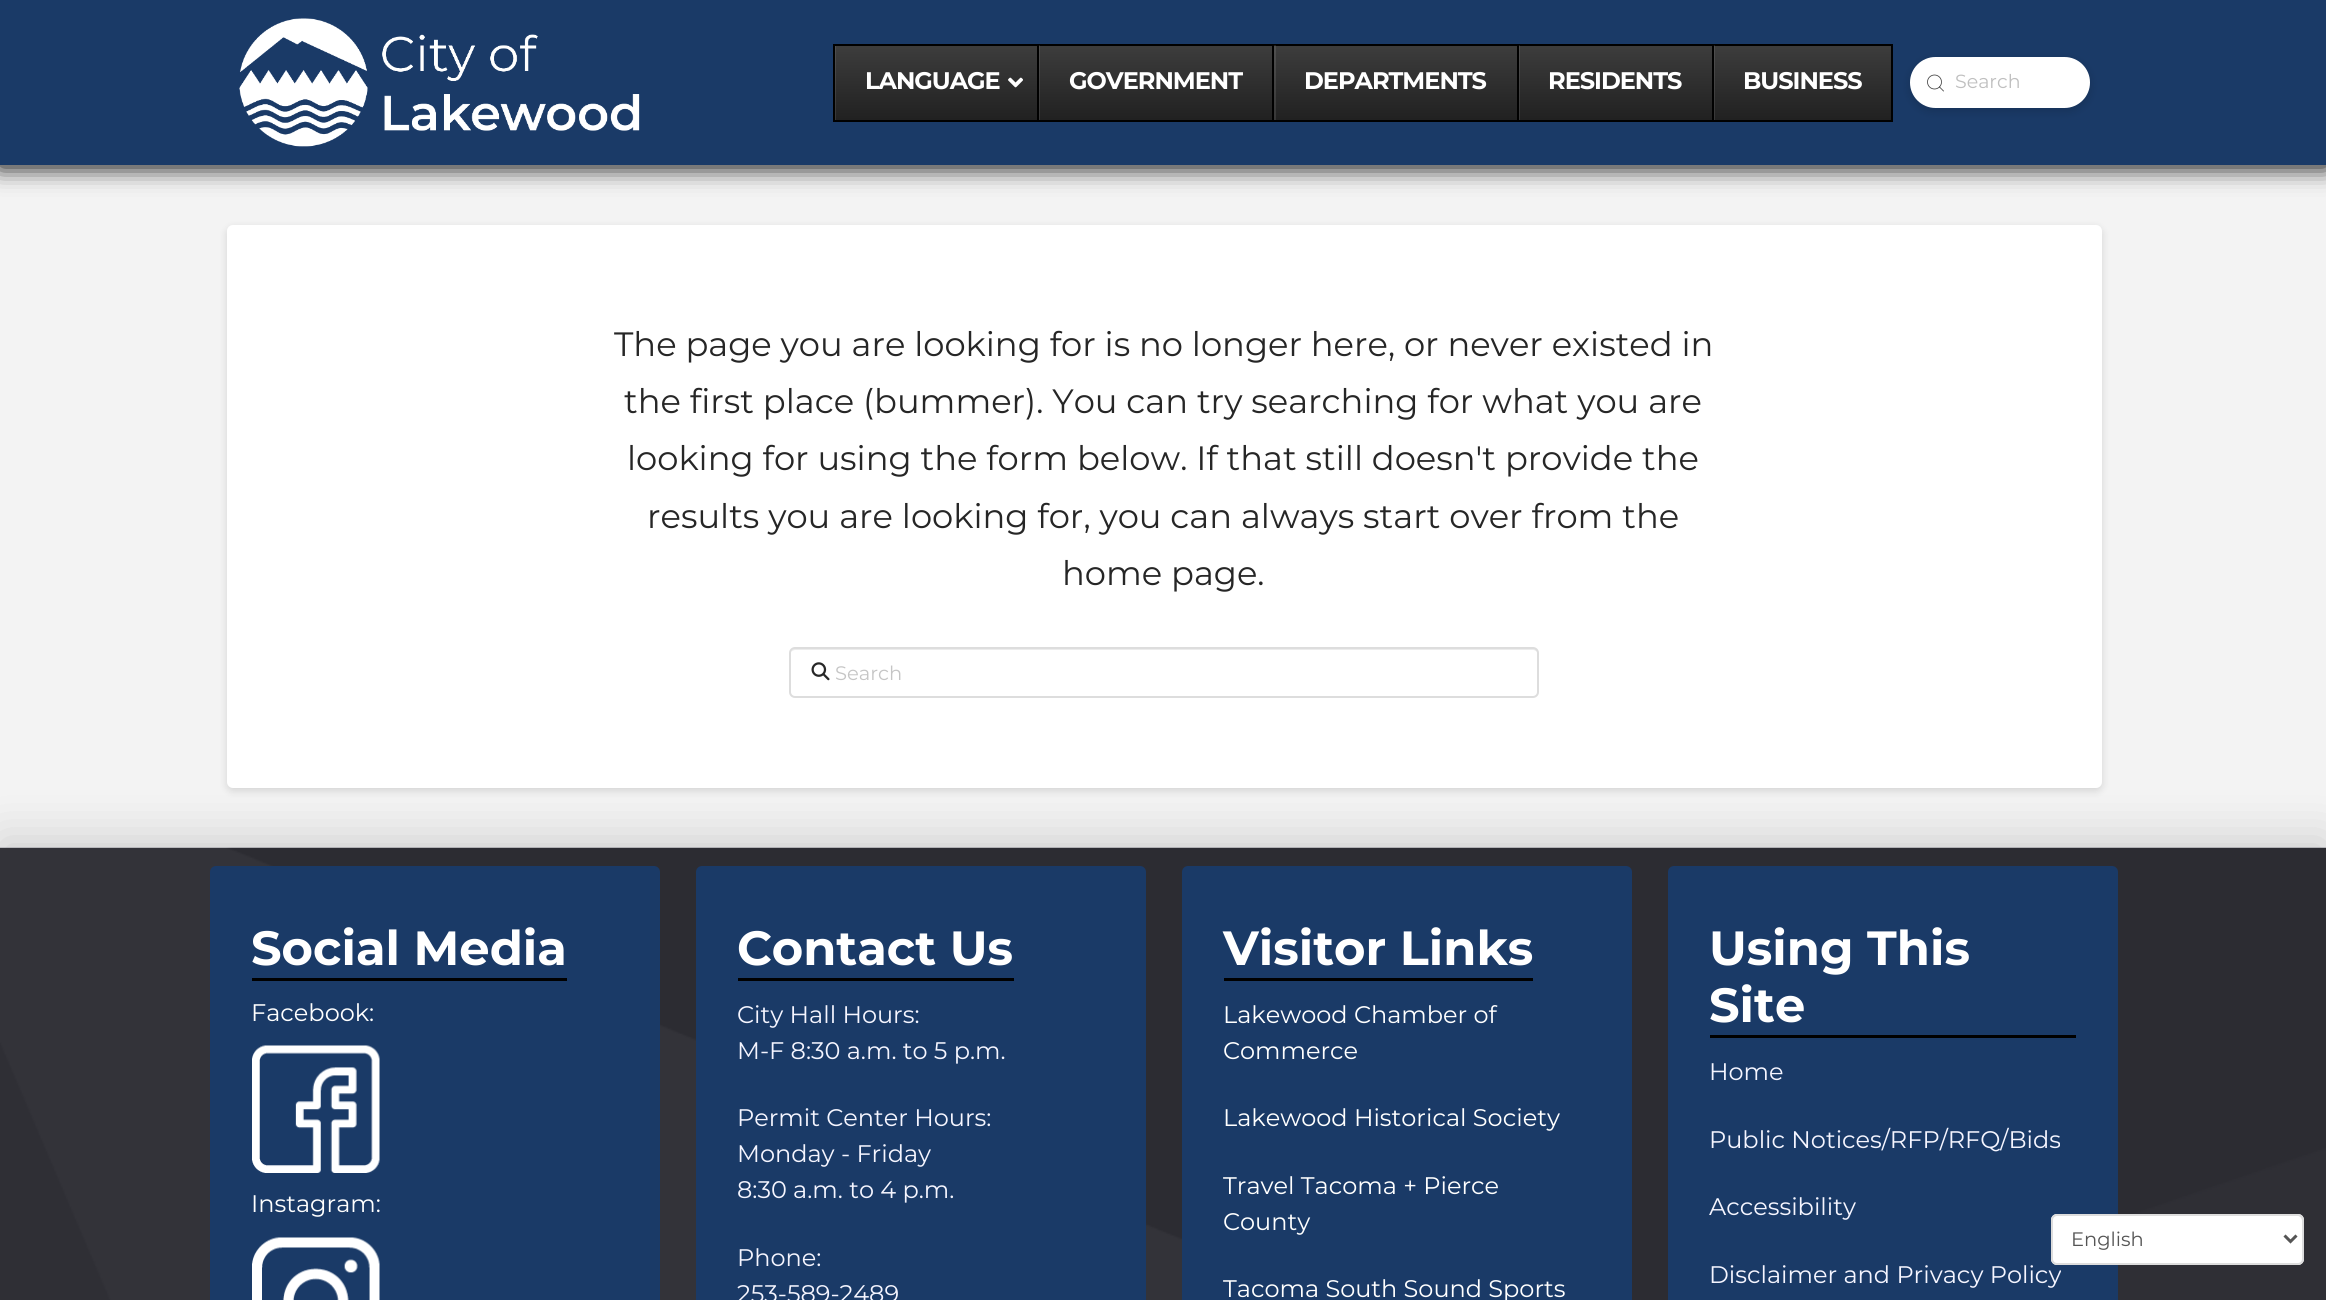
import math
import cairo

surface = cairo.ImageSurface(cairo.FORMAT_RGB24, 2326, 1300)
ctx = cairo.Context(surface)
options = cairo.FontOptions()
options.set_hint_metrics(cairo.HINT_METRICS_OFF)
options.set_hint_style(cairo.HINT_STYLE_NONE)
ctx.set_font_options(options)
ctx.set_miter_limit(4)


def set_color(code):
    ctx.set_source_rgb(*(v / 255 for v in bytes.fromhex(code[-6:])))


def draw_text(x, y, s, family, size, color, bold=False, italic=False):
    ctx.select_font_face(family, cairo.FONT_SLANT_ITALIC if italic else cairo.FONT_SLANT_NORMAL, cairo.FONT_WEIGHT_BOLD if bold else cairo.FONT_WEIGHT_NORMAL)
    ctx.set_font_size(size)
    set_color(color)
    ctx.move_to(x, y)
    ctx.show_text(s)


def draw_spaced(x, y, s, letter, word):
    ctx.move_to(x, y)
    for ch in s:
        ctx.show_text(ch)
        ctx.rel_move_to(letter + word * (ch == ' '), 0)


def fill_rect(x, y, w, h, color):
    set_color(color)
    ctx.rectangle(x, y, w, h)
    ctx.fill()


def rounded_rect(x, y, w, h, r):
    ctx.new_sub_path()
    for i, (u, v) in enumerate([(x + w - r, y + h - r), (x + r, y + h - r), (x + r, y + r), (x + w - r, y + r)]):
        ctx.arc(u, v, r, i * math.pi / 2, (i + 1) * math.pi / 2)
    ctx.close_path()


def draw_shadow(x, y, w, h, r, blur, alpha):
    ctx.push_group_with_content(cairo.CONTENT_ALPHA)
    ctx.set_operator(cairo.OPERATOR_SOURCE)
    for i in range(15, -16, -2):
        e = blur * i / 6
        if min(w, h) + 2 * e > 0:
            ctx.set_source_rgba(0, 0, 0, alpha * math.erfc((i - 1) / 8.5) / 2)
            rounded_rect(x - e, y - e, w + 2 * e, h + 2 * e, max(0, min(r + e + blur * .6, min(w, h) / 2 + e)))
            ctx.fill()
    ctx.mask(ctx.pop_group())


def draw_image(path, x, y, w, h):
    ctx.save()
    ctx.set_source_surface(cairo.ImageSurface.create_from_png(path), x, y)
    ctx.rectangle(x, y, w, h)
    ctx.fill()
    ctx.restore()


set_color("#f3f3f3")
ctx.paint()
set_color("#000000")
draw_shadow(-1, -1, 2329, 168, 0, 12, 1)
fill_rect(0, 0, 2326, 165, "#1a3a67")
draw_image("assets/img1.png", 239, 18, 401, 129)
gradient = cairo.LinearGradient(1363, 45, 1363, 120)
gradient.add_color_stop_rgba(0, 0.239, 0.239, 0.239, 1)
gradient.add_color_stop_rgba(1, 0.129, 0.129, 0.129, 1)
ctx.set_source(gradient)
ctx.rectangle(835, 46, 1056, 74)
ctx.fill()
ctx.save()
ctx.rectangle(834, 45, 1058, 75)
ctx.clip()
ctx.set_source_rgba(1, 1, 1, 0.1)
ctx.set_fill_rule(cairo.FILL_RULE_EVEN_ODD)
ctx.new_path()
ctx.move_to(686, -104)
ctx.line_to(2040, -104)
ctx.line_to(2040, 268)
ctx.line_to(686, 268)
ctx.close_path()
ctx.move_to(836, 46)
ctx.line_to(1893, 46)
ctx.line_to(1893, 122)
ctx.line_to(836, 122)
ctx.close_path()
ctx.fill()
ctx.restore()
ctx.rectangle(834, 45, 1058, 76)
set_color("#000000")
ctx.stroke()
ctx.select_font_face("Montserrat", cairo.FONT_SLANT_NORMAL, cairo.FONT_WEIGHT_BOLD)
ctx.set_font_size(24)
set_color("#ffffff")
draw_spaced(865, 89, "LANGUAGE", -1, 0)
draw_image("assets/img2.png", 1008, 77, 15, 11)
ctx.set_source_rgba(1, 1, 1, 0.1)
ctx.rectangle(1039, 45, 1, 75)
ctx.fill()
fill_rect(1037, 45, 2, 75, "#000000")
set_color("#ffffff")
draw_spaced(1069, 89, "GOVERNMENT", -1, 0)
ctx.set_source_rgba(1, 1, 1, 0.1)
ctx.rectangle(1274, 45, 2, 75)
ctx.fill()
fill_rect(1272, 45, 2, 75, "#000000")
set_color("#ffffff")
draw_spaced(1304, 89, "DEPARTMENTS", -1, 0)
ctx.set_source_rgba(1, 1, 1, 0.1)
ctx.rectangle(1519, 45, 1, 75)
ctx.fill()
fill_rect(1517, 45, 2, 75, "#000000")
set_color("#ffffff")
draw_spaced(1548, 89, "RESIDENTS", -1, 0)
ctx.set_source_rgba(1, 1, 1, 0.1)
ctx.rectangle(1714, 45, 1, 75)
ctx.fill()
fill_rect(1712, 45, 2, 75, "#000000")
set_color("#ffffff")
draw_spaced(1743, 89, "BUSINESS", -1, 0)
set_color("#000000")
draw_shadow(1910, 60, 180, 51, 25.5, 5, 0.15)
set_color("#ffffff")
rounded_rect(1910, 57, 180, 51, 25.5)
ctx.fill()
ctx.arc(1934.5, 82, 7, 0, 2 * math.pi)
set_color("#404040")
ctx.set_line_width(0.8)
ctx.stroke()
ctx.new_path()
ctx.move_to(1943.5, 91)
ctx.line_to(1939.5, 87)
ctx.set_source_rgba(0, 0, 0, 0.75)
ctx.set_line_cap(cairo.LINE_CAP_SQUARE)
ctx.stroke()
draw_text(1955, 88, "Search", "Montserrat", 19, "#bfbfbf")
set_color("#000000")
draw_shadow(227, 228, 1875, 563, 6, 4, 0.13)
set_color("#ffffff")
rounded_rect(227, 225, 1875, 563, 6)
ctx.fill()
draw_text(614, 356, "The page you are looking for is no longer here, or never existed in", "Montserrat", 33.75, "#262626")
draw_text(624, 413, "the first place (bummer). You can try searching for what you are", "Montserrat", 33.75, "#262626")
draw_text(627, 470, "looking for using the form below. If that still doesn't provide the", "Montserrat", 33.75, "#262626")
draw_text(647, 528, "results you are looking for, you can always start over from the", "Montserrat", 33.75, "#262626")
draw_text(1062, 585, "home page.", "Montserrat", 33.75, "#262626")
set_color("#ececec")
ctx.new_path()
ctx.move_to(795, 650)
ctx.line_to(1533, 650)
ctx.curve_to(1535, 650, 1538, 652, 1538, 654)
ctx.line_to(1538, 653)
ctx.curve_to(1538, 650, 1536, 648, 1533, 648)
ctx.line_to(796, 648)
ctx.curve_to(794, 648, 792, 650, 791, 652)
ctx.curve_to(792, 651, 794, 650, 795, 650)
ctx.close_path()
ctx.fill()
rounded_rect(790, 648, 748, 49, 5)
set_color("#dddddd")
ctx.set_line_width(2)
ctx.set_line_cap(cairo.LINE_CAP_BUTT)
ctx.stroke()
draw_image("assets/img3.png", 811, 662, 19, 19)
draw_text(835, 680, "Search", "Montserrat", 19.5, "#c5c5c5")
set_color("#000000")
draw_shadow(0, 839, 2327, 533, 0, 24, 0.15)
draw_image("assets/img4.png", 0, 847, 2326, 453)
set_color("#1a3a67")
rounded_rect(210, 866, 450, 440, 6)
ctx.fill()
fill_rect(252, 978, 315, 3, "#000000")
draw_text(251, 965, "Social Media", "Montserrat", 48, "#ffffff", bold=True)
draw_text(251, 1021, "Facebook:", "Montserrat", 24, "#ffffff")
draw_image("assets/img5.png", 252, 1045, 128, 128)
draw_text(251, 1212, "Instagram:", "Montserrat", 24, "#ffffff")
draw_image("assets/img6.png", 252, 1237, 128, 63)
set_color("#1a3a67")
rounded_rect(696, 866, 450, 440, 6)
ctx.fill()
fill_rect(738, 978, 276, 3, "#000000")
draw_text(737, 965, "Contact Us", "Montserrat", 48, "#ffffff", bold=True)
draw_text(737, 1023, "City Hall Hours:", "Montserrat", 24, "#f5f5ff")
draw_text(737, 1059, "M-F 8:30 a.m. to 5 p.m.", "Montserrat", 24, "#f5f5ff")
draw_text(737, 1126, "Permit Center Hours:", "Montserrat", 24, "#f5f5ff")
draw_text(737, 1162, "Monday - Friday", "Montserrat", 24, "#f5f5ff")
draw_text(737, 1198, "8:30 a.m. to 4 p.m.", "Montserrat", 24, "#f5f5ff")
draw_text(737, 1266, "Phone:", "Montserrat", 24, "#f5f5ff")
draw_text(737, 1302, "253-589-2489", "Montserrat", 24, "#f5f5ff")
set_color("#1a3a67")
rounded_rect(1182, 866, 450, 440, 6)
ctx.fill()
fill_rect(1224, 978, 309, 3, "#000000")
draw_text(1223, 965, "Visitor Links", "Montserrat", 48, "#ffffff", bold=True)
draw_text(1223, 1023, "Lakewood Chamber of", "Montserrat", 24, "#ffffff")
draw_text(1223, 1059, "Commerce", "Montserrat", 24, "#ffffff")
draw_text(1223, 1126, "Lakewood Historical Society", "Montserrat", 24, "#ffffff")
draw_text(1223, 1194, "Travel Tacoma + Pierce", "Montserrat", 24, "#ffffff")
draw_text(1223, 1230, "County", "Montserrat", 24, "#ffffff")
draw_text(1223, 1297, "Tacoma South Sound Sports", "Montserrat", 24, "#ffffff")
set_color("#1a3a67")
rounded_rect(1668, 866, 450, 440, 6)
ctx.fill()
fill_rect(1710, 1035, 366, 3, "#000000")
draw_text(1709, 965, "Using This", "Montserrat", 48, "#ffffff", bold=True)
draw_text(1709, 1022, "Site", "Montserrat", 48, "#ffffff", bold=True)
draw_text(1709, 1080, "Home", "Montserrat", 24, "#f5f5ff")
draw_text(1709, 1148, "Public Notices/RFP/RFQ/Bids", "Montserrat", 24, "#f5f5ff")
draw_text(1709, 1215, "Accessibility", "Montserrat", 24, "#f5f5ff")
draw_text(1709, 1283, "Disclaimer and Privacy Policy", "Montserrat", 24, "#f5f5ff")
set_color("#ffffff")
rounded_rect(2051, 1214, 253, 51, 6)
ctx.fill()
set_color("#ececec")
ctx.new_path()
ctx.move_to(2056, 1216)
ctx.line_to(2298, 1216)
ctx.curve_to(2300, 1216, 2302, 1219, 2302, 1221)
ctx.line_to(2302, 1261)
ctx.curve_to(2303, 1260, 2303, 1259, 2303, 1258)
ctx.line_to(2303, 1220)
ctx.curve_to(2303, 1217, 2301, 1215, 2298, 1215)
ctx.line_to(2057, 1215)
ctx.curve_to(2054, 1215, 2052, 1217, 2052, 1220)
ctx.line_to(2052, 1221)
ctx.curve_to(2052, 1219, 2054, 1216, 2056, 1216)
ctx.close_path()
ctx.fill()
rounded_rect(2052, 1215, 251, 49, 5)
set_color("#dddddd")
ctx.stroke()
ctx.new_path()
ctx.move_to(2284.5, 1235.5)
ctx.line_to(2290.5, 1241.5)
ctx.line_to(2296.5, 1235.5)
set_color("#555555")
ctx.set_line_width(3)
ctx.stroke()
draw_text(2071, 1246, "English", "Montserrat", 19.5, "#555555")
surface.write_to_png("output.png")
